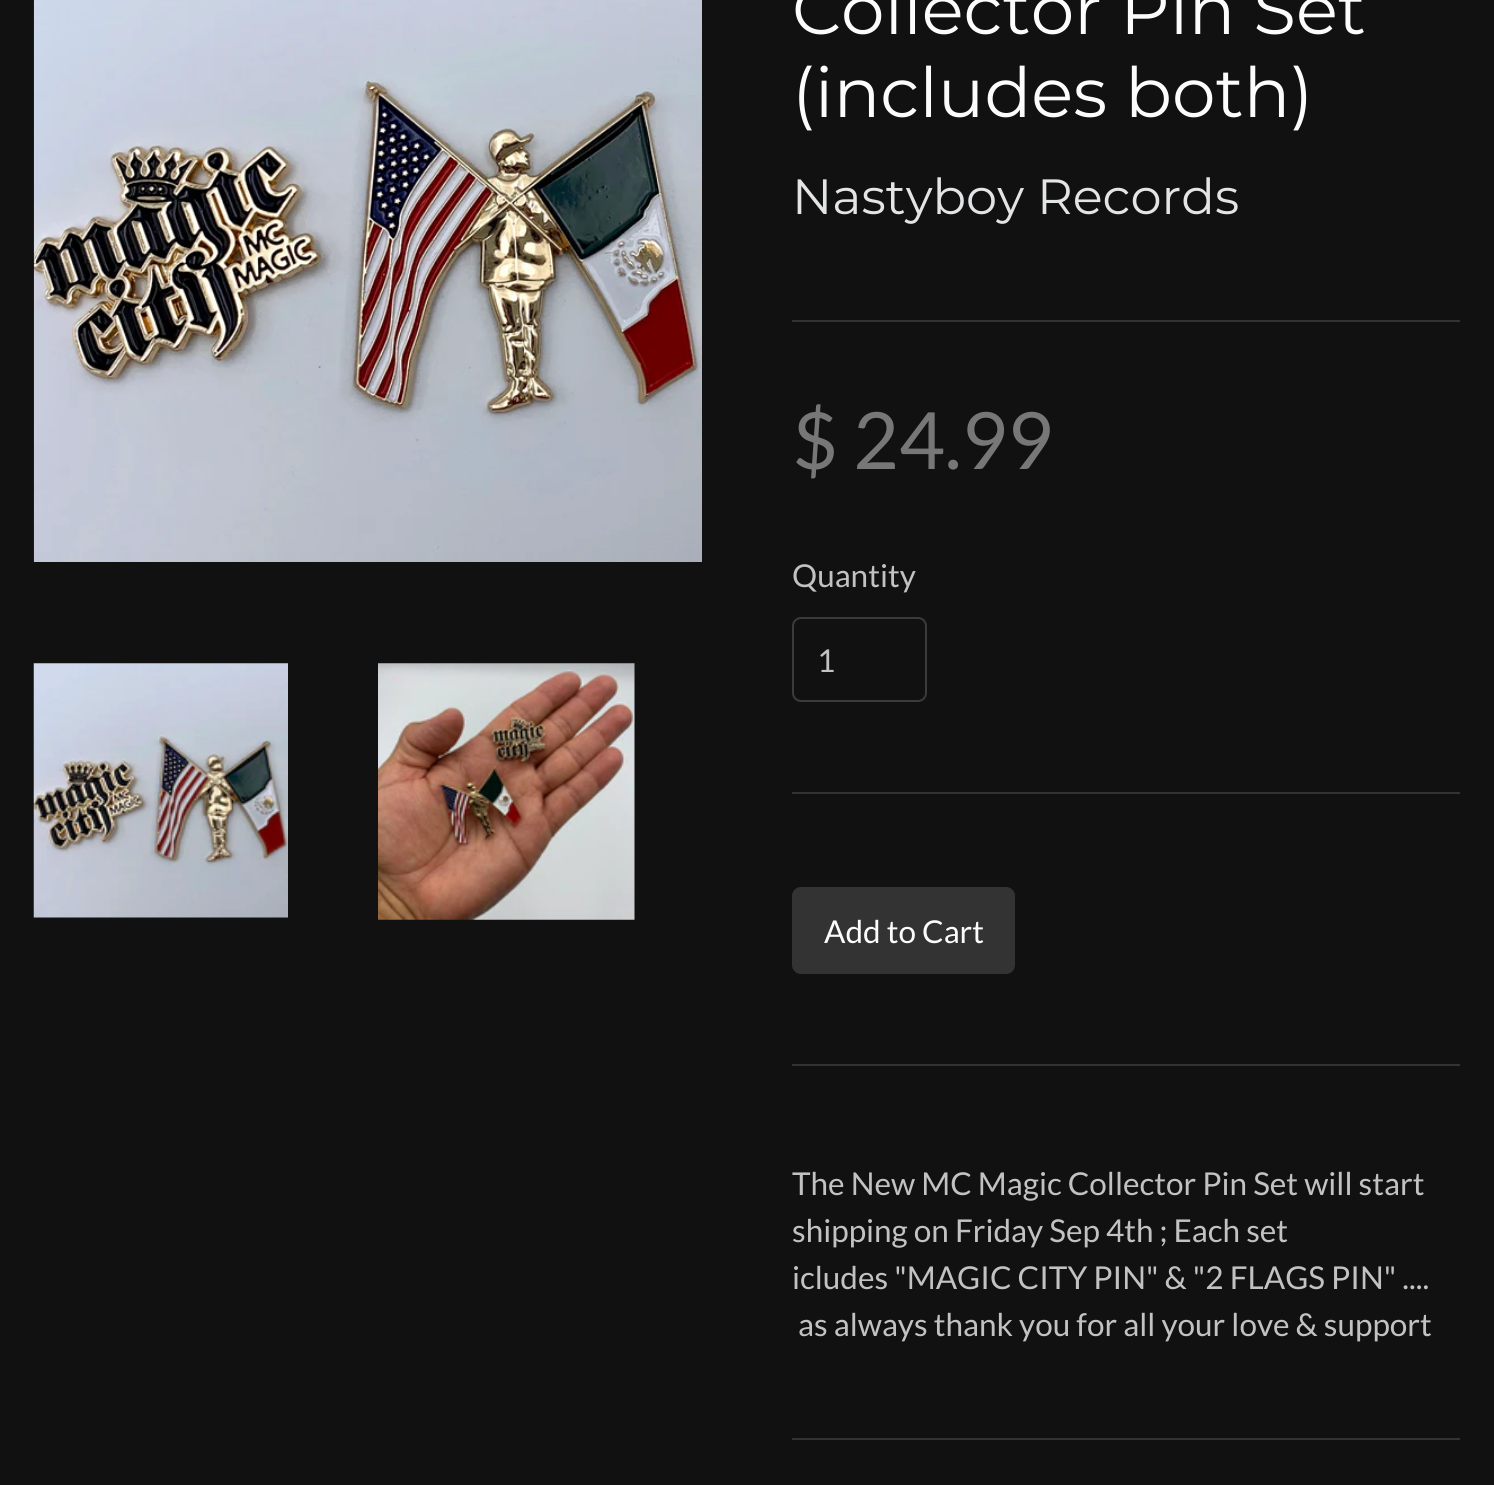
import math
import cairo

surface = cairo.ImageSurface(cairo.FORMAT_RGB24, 1494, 1485)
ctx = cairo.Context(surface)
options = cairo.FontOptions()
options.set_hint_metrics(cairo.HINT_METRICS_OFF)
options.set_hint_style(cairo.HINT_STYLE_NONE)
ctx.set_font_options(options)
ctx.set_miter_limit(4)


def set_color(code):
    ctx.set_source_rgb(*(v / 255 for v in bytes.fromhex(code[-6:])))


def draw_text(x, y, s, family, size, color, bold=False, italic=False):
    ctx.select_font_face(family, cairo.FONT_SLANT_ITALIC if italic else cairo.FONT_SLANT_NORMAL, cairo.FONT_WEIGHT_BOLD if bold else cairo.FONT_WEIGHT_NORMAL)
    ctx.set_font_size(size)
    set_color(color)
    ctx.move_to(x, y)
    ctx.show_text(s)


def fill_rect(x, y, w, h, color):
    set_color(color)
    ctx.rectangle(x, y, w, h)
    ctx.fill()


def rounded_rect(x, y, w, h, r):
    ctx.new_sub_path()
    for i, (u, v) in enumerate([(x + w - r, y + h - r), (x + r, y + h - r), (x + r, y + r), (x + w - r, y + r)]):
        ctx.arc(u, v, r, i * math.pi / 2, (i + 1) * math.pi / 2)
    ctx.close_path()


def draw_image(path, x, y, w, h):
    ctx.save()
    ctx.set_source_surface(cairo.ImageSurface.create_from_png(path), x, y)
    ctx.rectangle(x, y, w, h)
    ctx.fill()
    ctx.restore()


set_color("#121111")
ctx.paint()
draw_image("assets/img1.png", 33, 0, 669, 562)
draw_image("assets/img2.png", 33, 663, 255, 255)
draw_image("assets/img3.png", 378, 663, 257, 257)
draw_text(792, 34, "Collector Pin Set", "Montserrat Thin", 69.25, "#fcfcfc")
draw_text(792, 117, "(includes both)", "Montserrat Thin", 69.25, "#fcfcfc")
draw_text(792, 214, "Nastyboy Records", "Montserrat Thin", 49.5, "#e2e4e5")
fill_rect(792, 320, 668, 2, "#333333")
draw_text(792, 469, "$ 24.99", "Lato", 79, "#777777")
draw_text(792, 587, "Quantity", "Lato", 31.5, "#c2c2c2")
rounded_rect(793, 618, 133, 83, 8)
set_color("#3b3b3b")
ctx.stroke()
draw_text(817, 672, "1", "Lato", 31.5, "#c2c2c2")
fill_rect(792, 792, 668, 2, "#333333")
rounded_rect(792, 887, 223, 87, 9)
ctx.fill()
draw_text(824, 943, "Add to Cart", "Lato", 31.5, "#fcfcfc")
fill_rect(792, 1064, 668, 2, "#333333")
draw_text(792, 1195, "The New MC Magic Collector Pin Set will start", "Lato", 31.5, "#c2c2c2")
draw_text(792, 1242, "shipping on Friday Sep 4th ; Each set", "Lato", 31.5, "#c2c2c2")
draw_text(792, 1289, "icludes \"MAGIC CITY PIN\" & \"2 FLAGS PIN\" ....", "Lato", 31.5, "#c2c2c2")
draw_text(798, 1336, "as always thank you for all your love & support", "Lato", 31.5, "#c2c2c2")
fill_rect(792, 1438, 668, 2, "#333333")
surface.write_to_png("output.png")
